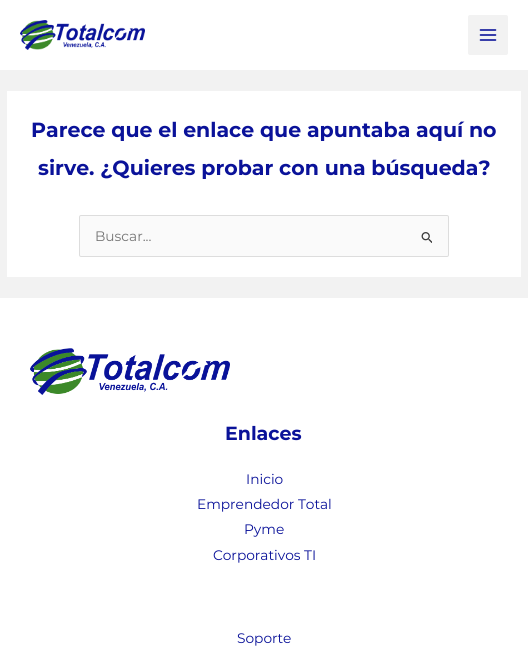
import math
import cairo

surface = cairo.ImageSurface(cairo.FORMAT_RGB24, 528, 654)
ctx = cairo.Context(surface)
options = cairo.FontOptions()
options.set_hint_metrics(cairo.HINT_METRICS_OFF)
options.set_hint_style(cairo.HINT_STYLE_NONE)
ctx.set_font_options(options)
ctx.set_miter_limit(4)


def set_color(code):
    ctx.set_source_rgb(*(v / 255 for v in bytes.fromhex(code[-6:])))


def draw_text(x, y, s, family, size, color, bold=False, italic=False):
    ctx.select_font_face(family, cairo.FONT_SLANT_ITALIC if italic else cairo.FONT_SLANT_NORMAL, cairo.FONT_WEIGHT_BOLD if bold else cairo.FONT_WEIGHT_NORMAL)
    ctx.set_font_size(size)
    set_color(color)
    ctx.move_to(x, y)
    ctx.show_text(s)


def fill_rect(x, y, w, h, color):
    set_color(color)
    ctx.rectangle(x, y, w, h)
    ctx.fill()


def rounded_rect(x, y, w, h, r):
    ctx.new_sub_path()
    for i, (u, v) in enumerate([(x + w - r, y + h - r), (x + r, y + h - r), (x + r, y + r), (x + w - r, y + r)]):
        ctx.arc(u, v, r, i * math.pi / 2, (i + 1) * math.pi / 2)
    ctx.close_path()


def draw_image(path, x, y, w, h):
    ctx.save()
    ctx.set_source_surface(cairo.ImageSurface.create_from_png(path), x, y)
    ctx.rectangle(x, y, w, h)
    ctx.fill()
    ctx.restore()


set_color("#f2f2f2")
ctx.paint()
fill_rect(0, 0, 528, 70, "#ffffff")
draw_image("assets/img1.png", 20, 20, 125, 30)
set_color("#f2f2f2")
rounded_rect(468, 15, 40, 40, 2)
ctx.fill()
draw_image("assets/img2.png", 479, 29, 18, 12)
fill_rect(7, 91, 514, 186, "#ffffff")
draw_text(31, 137, "Parece que el enlace que apuntaba aquí no", "Montserrat", 20.5, "#0a1299", bold=True)
draw_text(38, 175, "sirve. ¿Quieres probar con una búsqueda?", "Montserrat", 20.5, "#0a1299", bold=True)
set_color("#fafafa")
rounded_rect(79.5, 215.5, 369, 41, 1.5)
ctx.fill_preserve()
set_color("#dddddd")
ctx.set_line_width(1)
ctx.stroke()
draw_text(95, 241, "Buscar...", "Montserrat", 13.75, "#757575")
draw_image("assets/img3.png", 421, 232, 11, 11)
fill_rect(0, 298, 528, 356, "#ffffff")
draw_image("assets/img4.png", 30, 348, 200, 47)
draw_text(225, 440, "Enlaces", "Montserrat", 19, "#0a1299", bold=True)
draw_text(246, 484, "Inicio", "Montserrat", 13.75, "#0a1299")
draw_text(197, 509, "Emprendedor Total", "Montserrat", 13.75, "#0a1299")
draw_text(244, 534, "Pyme", "Montserrat", 13.75, "#0a1299")
draw_text(213, 560, "Corporativos TI", "Montserrat", 13.75, "#0a1299")
draw_text(237, 643, "Soporte", "Montserrat", 13.75, "#0a1299")
surface.write_to_png("output.png")
